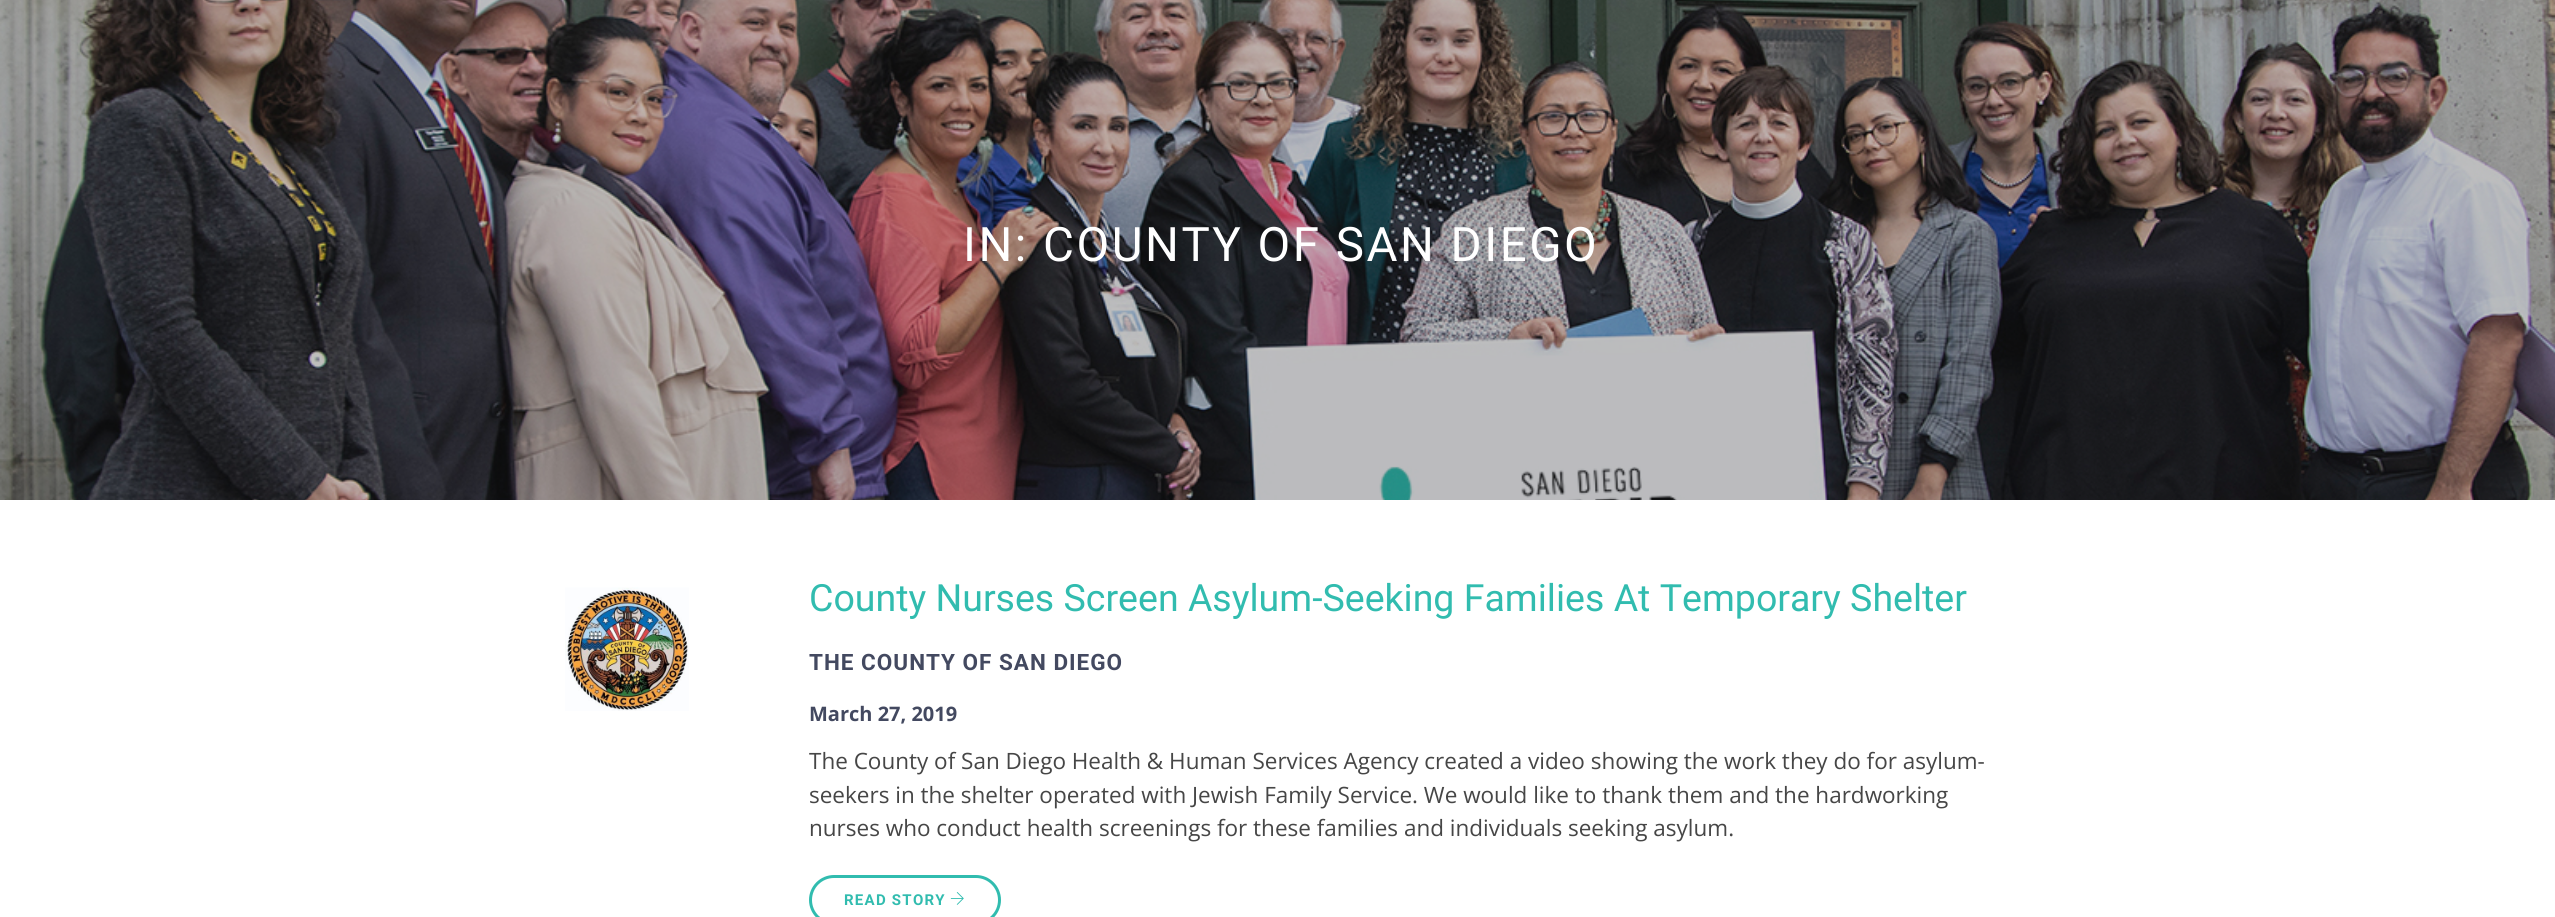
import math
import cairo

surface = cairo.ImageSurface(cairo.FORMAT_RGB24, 2555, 917)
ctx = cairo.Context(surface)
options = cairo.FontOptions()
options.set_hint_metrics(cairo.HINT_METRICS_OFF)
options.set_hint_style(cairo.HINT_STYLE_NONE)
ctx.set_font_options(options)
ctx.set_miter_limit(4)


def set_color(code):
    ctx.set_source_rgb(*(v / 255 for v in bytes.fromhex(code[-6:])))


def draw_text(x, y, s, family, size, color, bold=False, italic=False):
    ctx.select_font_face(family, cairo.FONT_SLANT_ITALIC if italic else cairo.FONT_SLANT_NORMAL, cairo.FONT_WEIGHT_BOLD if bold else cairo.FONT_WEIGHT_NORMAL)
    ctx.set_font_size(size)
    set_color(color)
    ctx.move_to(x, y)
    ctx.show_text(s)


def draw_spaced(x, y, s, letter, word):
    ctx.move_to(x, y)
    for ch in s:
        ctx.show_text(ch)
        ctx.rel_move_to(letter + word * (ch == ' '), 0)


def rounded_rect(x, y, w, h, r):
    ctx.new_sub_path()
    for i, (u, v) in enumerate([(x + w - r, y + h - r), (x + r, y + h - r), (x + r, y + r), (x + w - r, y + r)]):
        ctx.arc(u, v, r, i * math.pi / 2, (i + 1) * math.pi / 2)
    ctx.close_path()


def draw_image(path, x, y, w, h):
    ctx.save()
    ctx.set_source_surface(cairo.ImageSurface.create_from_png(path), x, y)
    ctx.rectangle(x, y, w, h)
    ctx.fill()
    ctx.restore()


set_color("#ffffff")
ctx.paint()
draw_image("assets/img1.png", 0, 0, 2555, 500)
ctx.select_font_face("Roboto")
ctx.set_font_size(47.5)
set_color("#ffffff")
draw_spaced(963, 261, "IN: COUNTY OF SAN DIEGO", 2.5, 0)
draw_image("assets/img2.png", 565, 587, 124, 124)
draw_text(809, 611, "County Nurses Screen Asylum-Seeking Families At Temporary Shelter", "Roboto", 37.5, "#31bcaf")
ctx.select_font_face("Roboto", cairo.FONT_SLANT_NORMAL, cairo.FONT_WEIGHT_BOLD)
ctx.set_font_size(22.5)
set_color("#434960")
draw_spaced(809, 670, "THE COUNTY OF SAN DIEGO", 1, 0)
draw_text(809, 721, "March 27, 2019", "Open Sans", 20, "#434960", bold=True)
draw_text(809, 769, "The County of San Diego Health & Human Services Agency created a video showing the work they do for asylum-", "Open Sans", 22.5, "#464646")
draw_text(809, 803, "seekers in the shelter operated with Jewish Family Service. We would like to thank them and the hardworking", "Open Sans", 22.5, "#464646")
draw_text(809, 836, "nurses who conduct health screenings for these families and individuals seeking asylum.", "Open Sans", 22.5, "#464646")
rounded_rect(810.5, 876.5, 189, 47, 23.5)
set_color("#31bcaf")
ctx.set_line_width(3)
ctx.stroke()
ctx.select_font_face("Roboto", cairo.FONT_SLANT_NORMAL, cairo.FONT_WEIGHT_BOLD)
ctx.set_font_size(15)
draw_spaced(844, 905, "READ STORY", 1.25, 0)
draw_image("assets/img3.png", 950, 892, 14, 13)
surface.write_to_png("output.png")
